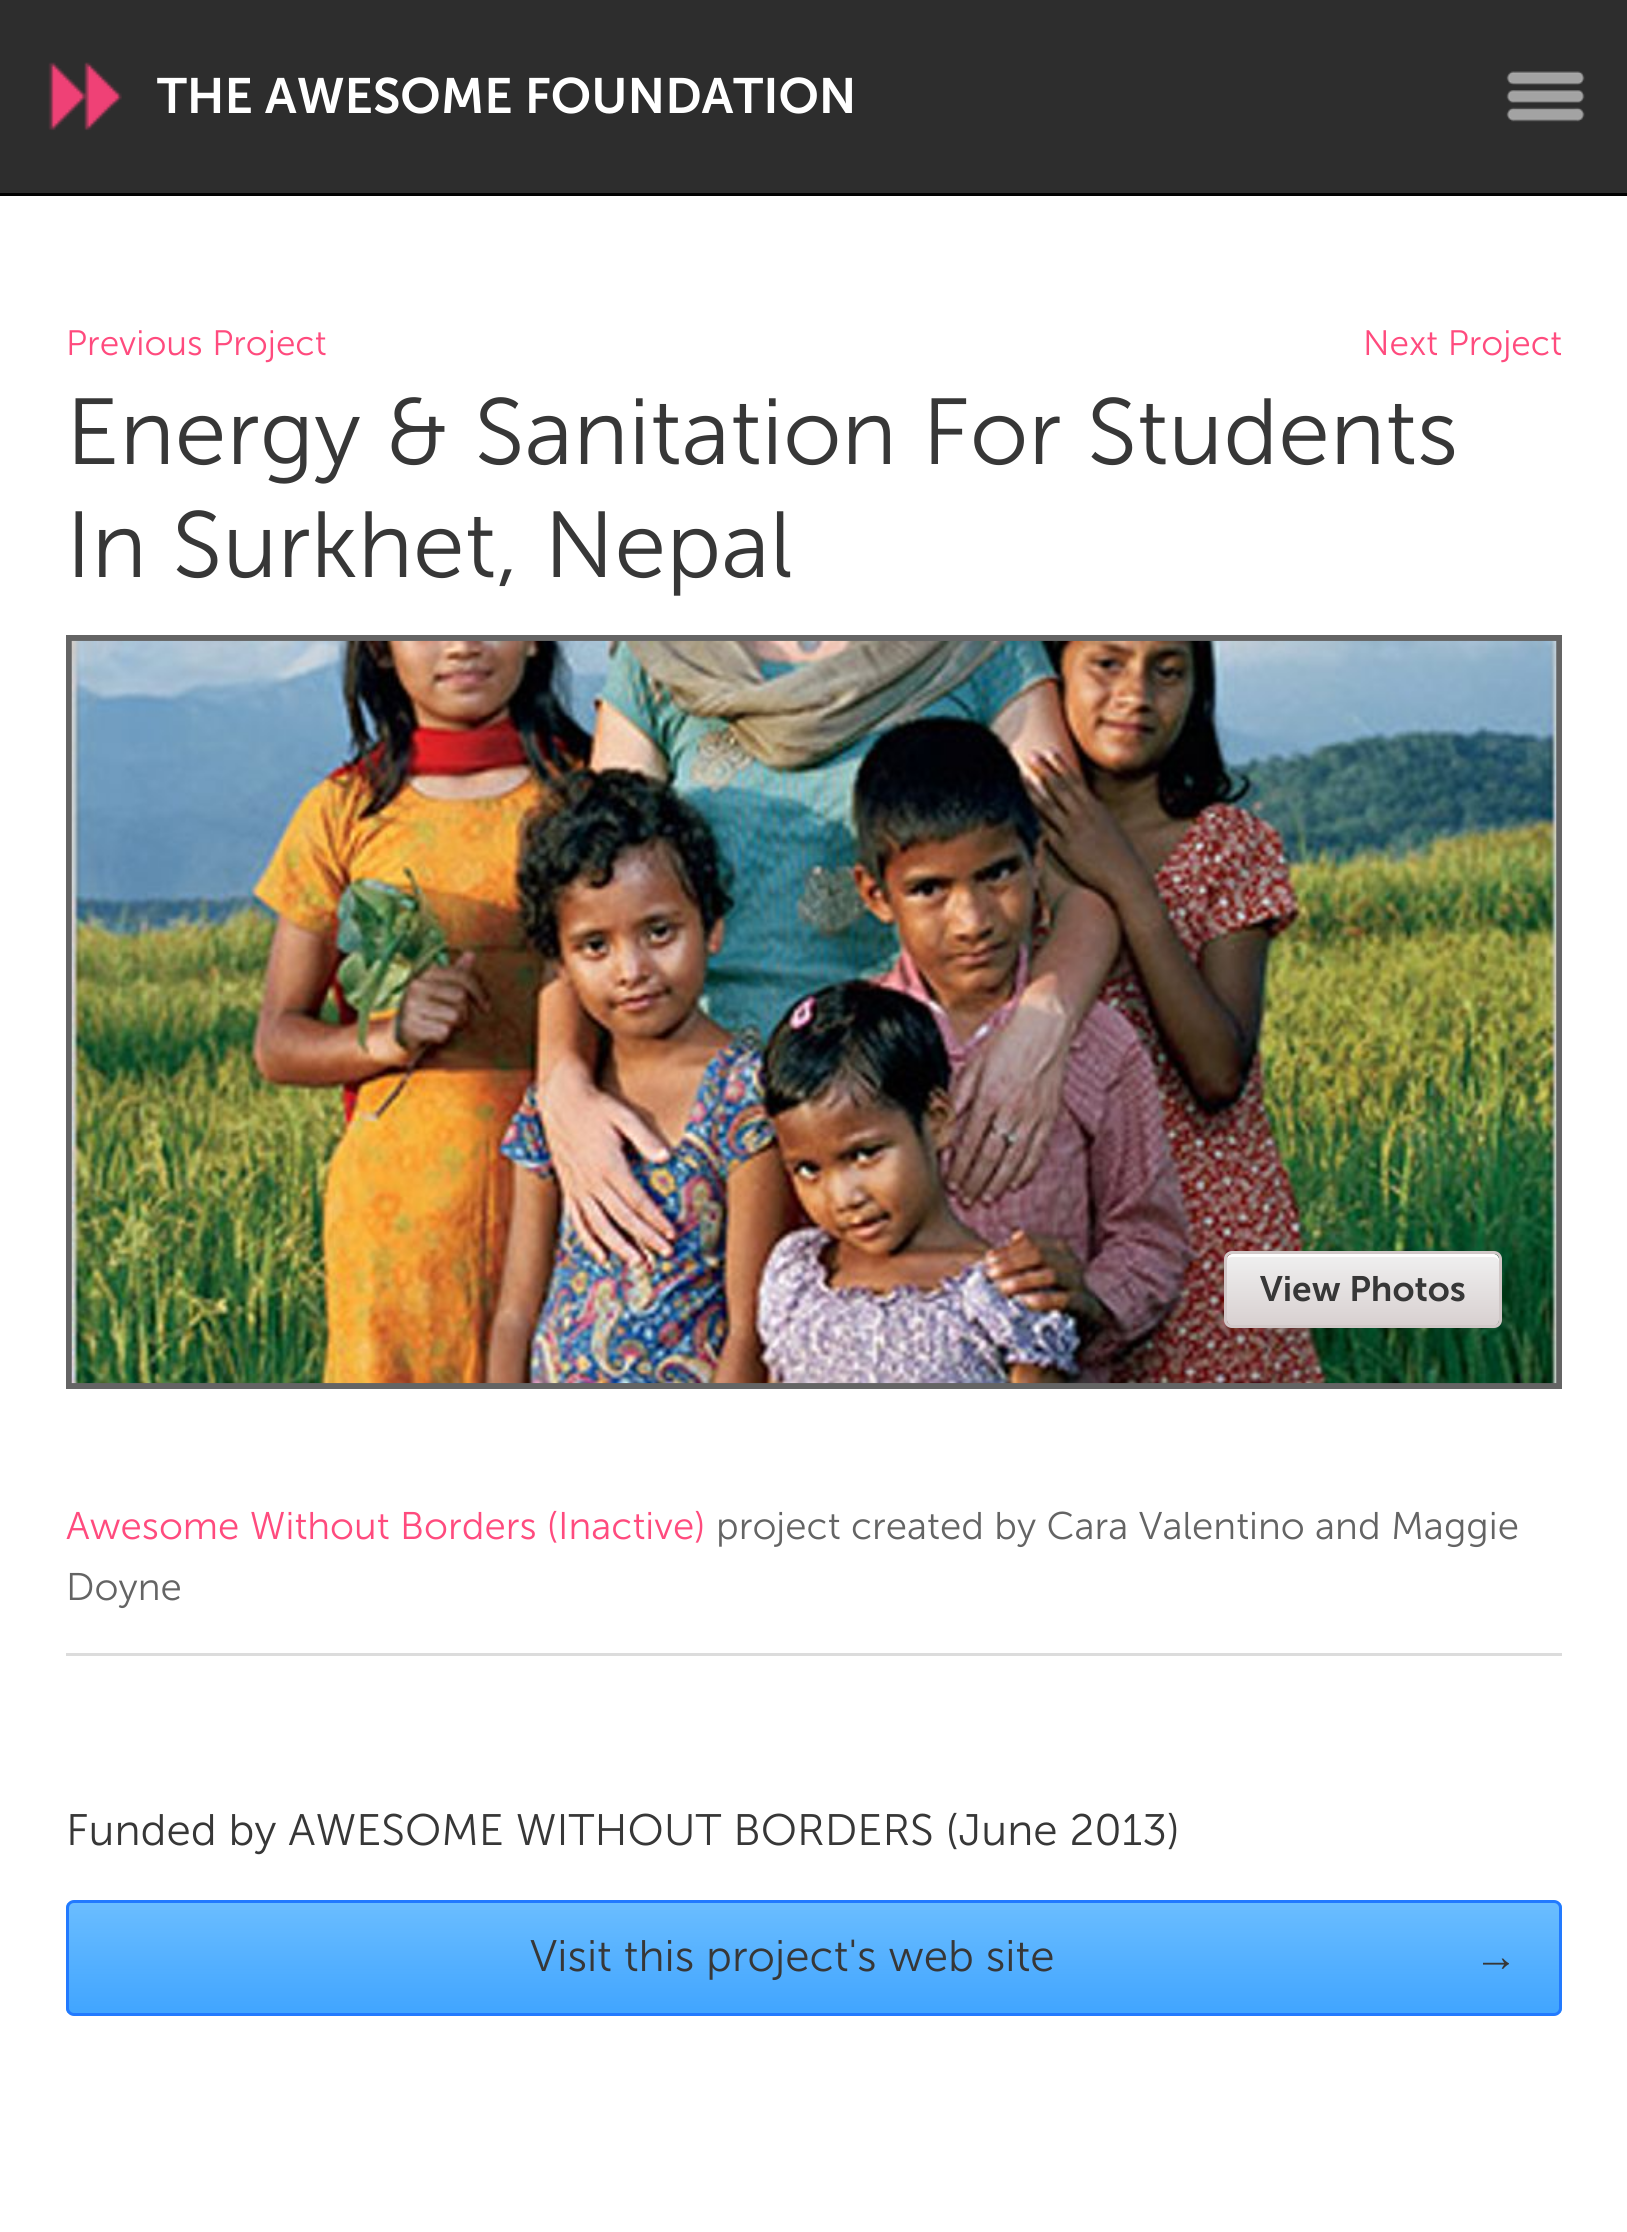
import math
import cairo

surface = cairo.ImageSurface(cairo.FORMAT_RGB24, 1627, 2232)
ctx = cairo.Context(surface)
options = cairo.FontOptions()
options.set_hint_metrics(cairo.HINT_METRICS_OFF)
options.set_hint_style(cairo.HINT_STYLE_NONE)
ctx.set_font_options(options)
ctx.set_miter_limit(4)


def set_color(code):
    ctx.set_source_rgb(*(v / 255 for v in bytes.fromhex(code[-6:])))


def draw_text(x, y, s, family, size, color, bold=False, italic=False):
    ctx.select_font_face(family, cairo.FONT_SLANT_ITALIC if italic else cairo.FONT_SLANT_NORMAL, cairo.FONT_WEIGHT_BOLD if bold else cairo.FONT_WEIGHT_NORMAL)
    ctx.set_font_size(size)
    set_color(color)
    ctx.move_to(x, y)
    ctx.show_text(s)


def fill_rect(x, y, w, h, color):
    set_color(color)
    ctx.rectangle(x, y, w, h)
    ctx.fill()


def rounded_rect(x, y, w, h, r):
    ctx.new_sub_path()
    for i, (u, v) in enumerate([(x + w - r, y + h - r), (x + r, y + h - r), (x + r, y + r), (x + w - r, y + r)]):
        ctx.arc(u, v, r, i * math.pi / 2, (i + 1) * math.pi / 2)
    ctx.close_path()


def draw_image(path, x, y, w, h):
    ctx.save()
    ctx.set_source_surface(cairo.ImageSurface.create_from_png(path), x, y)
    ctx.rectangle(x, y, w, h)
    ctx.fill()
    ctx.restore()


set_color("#ffffff")
ctx.paint()
fill_rect(0, 0, 1627, 193, "#2d2d2d")
fill_rect(0, 193, 1627, 3, "#000000")
draw_image("assets/img1.png", 48, 62, 74, 69)
draw_text(157, 113, "THE AWESOME FOUNDATION", "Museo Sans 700 SemiBold", 49.5, "#ffffff")
draw_image("assets/img2.png", 1506, 71, 79, 51)
draw_text(66, 355, "Previous Project", "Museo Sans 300 Light", 35.25, "#ff4b7e")
draw_text(1363, 355, "Next Project", "Museo Sans 300 Light", 35.25, "#ff4b7e")
draw_text(66, 464, "Energy & Sanitation For Students", "Museo Sans 300 Light", 93.5, "#373737")
draw_text(66, 577, "In Surkhet, Nepal", "Museo Sans 300 Light", 93.5, "#373737")
fill_rect(66, 635, 1496, 754, "#646464")
draw_image("assets/img3.png", 71, 640, 1486, 744)
gradient = cairo.LinearGradient(1363, 1254, 1363, 1326)
gradient.add_color_stop_rgba(0, 0.941, 0.941, 0.941, 1)
gradient.add_color_stop_rgba(1, 0.847, 0.816, 0.816, 1)
ctx.set_source(gradient)
rounded_rect(1227, 1254, 272, 72, 6)
ctx.fill()
set_color("#ffffff")
ctx.new_path()
ctx.move_to(1232, 1257)
ctx.line_to(1493, 1257)
ctx.curve_to(1496, 1257, 1499, 1259, 1499, 1262)
ctx.line_to(1499, 1260)
ctx.curve_to(1499, 1257, 1496, 1254, 1493, 1254)
ctx.line_to(1233, 1254)
ctx.curve_to(1230, 1254, 1227, 1256, 1227, 1259)
ctx.curve_to(1228, 1258, 1230, 1257, 1232, 1257)
ctx.close_path()
ctx.fill()
rounded_rect(1225.5, 1252.5, 275, 74, 6.5)
set_color("#d1c8c8")
ctx.set_line_width(3)
ctx.stroke()
draw_text(1260, 1301, "View Photos", "Museo Sans 700 SemiBold", 35.25, "#373737")
fill_rect(66, 1653, 1496, 3, "#dcdcdc")
draw_text(66, 1539, "Awesome Without Borders (Inactive)", "Museo Sans 300 Light", 38.5, "#ff4b7e")
draw_text(716, 1539, "project created by Cara Valentino and Maggie", "Museo Sans 300 Light", 38.5, "#646464")
draw_text(66, 1600, "Doyne", "Museo Sans 300 Light", 38.5, "#646464")
draw_text(66, 1845, "Funded by AWESOME WITHOUT BORDERS (June 2013)", "Museo Sans 300 Light", 44, "#373737")
ctx.save()
rounded_rect(66, 1900, 1496, 116, 8)
ctx.clip()
gradient = cairo.LinearGradient(814, 1903, 814, 2013)
gradient.add_color_stop_rgba(0, 0.416, 0.741, 1, 1)
gradient.add_color_stop_rgba(1, 0.255, 0.647, 1, 1)
ctx.set_source(gradient)
ctx.rectangle(66, 1903, 1496, 110)
ctx.fill()
ctx.restore()
rounded_rect(67.5, 1901.5, 1493, 113, 6.5)
set_color("#227aff")
ctx.stroke()
draw_text(530, 1971, "Visit this project's web site", "Museo Sans 300 Light", 44, "#373737")
draw_text(1474, 1971, "→", "Liberation Sans", 44, "#373737")
surface.write_to_png("output.png")
